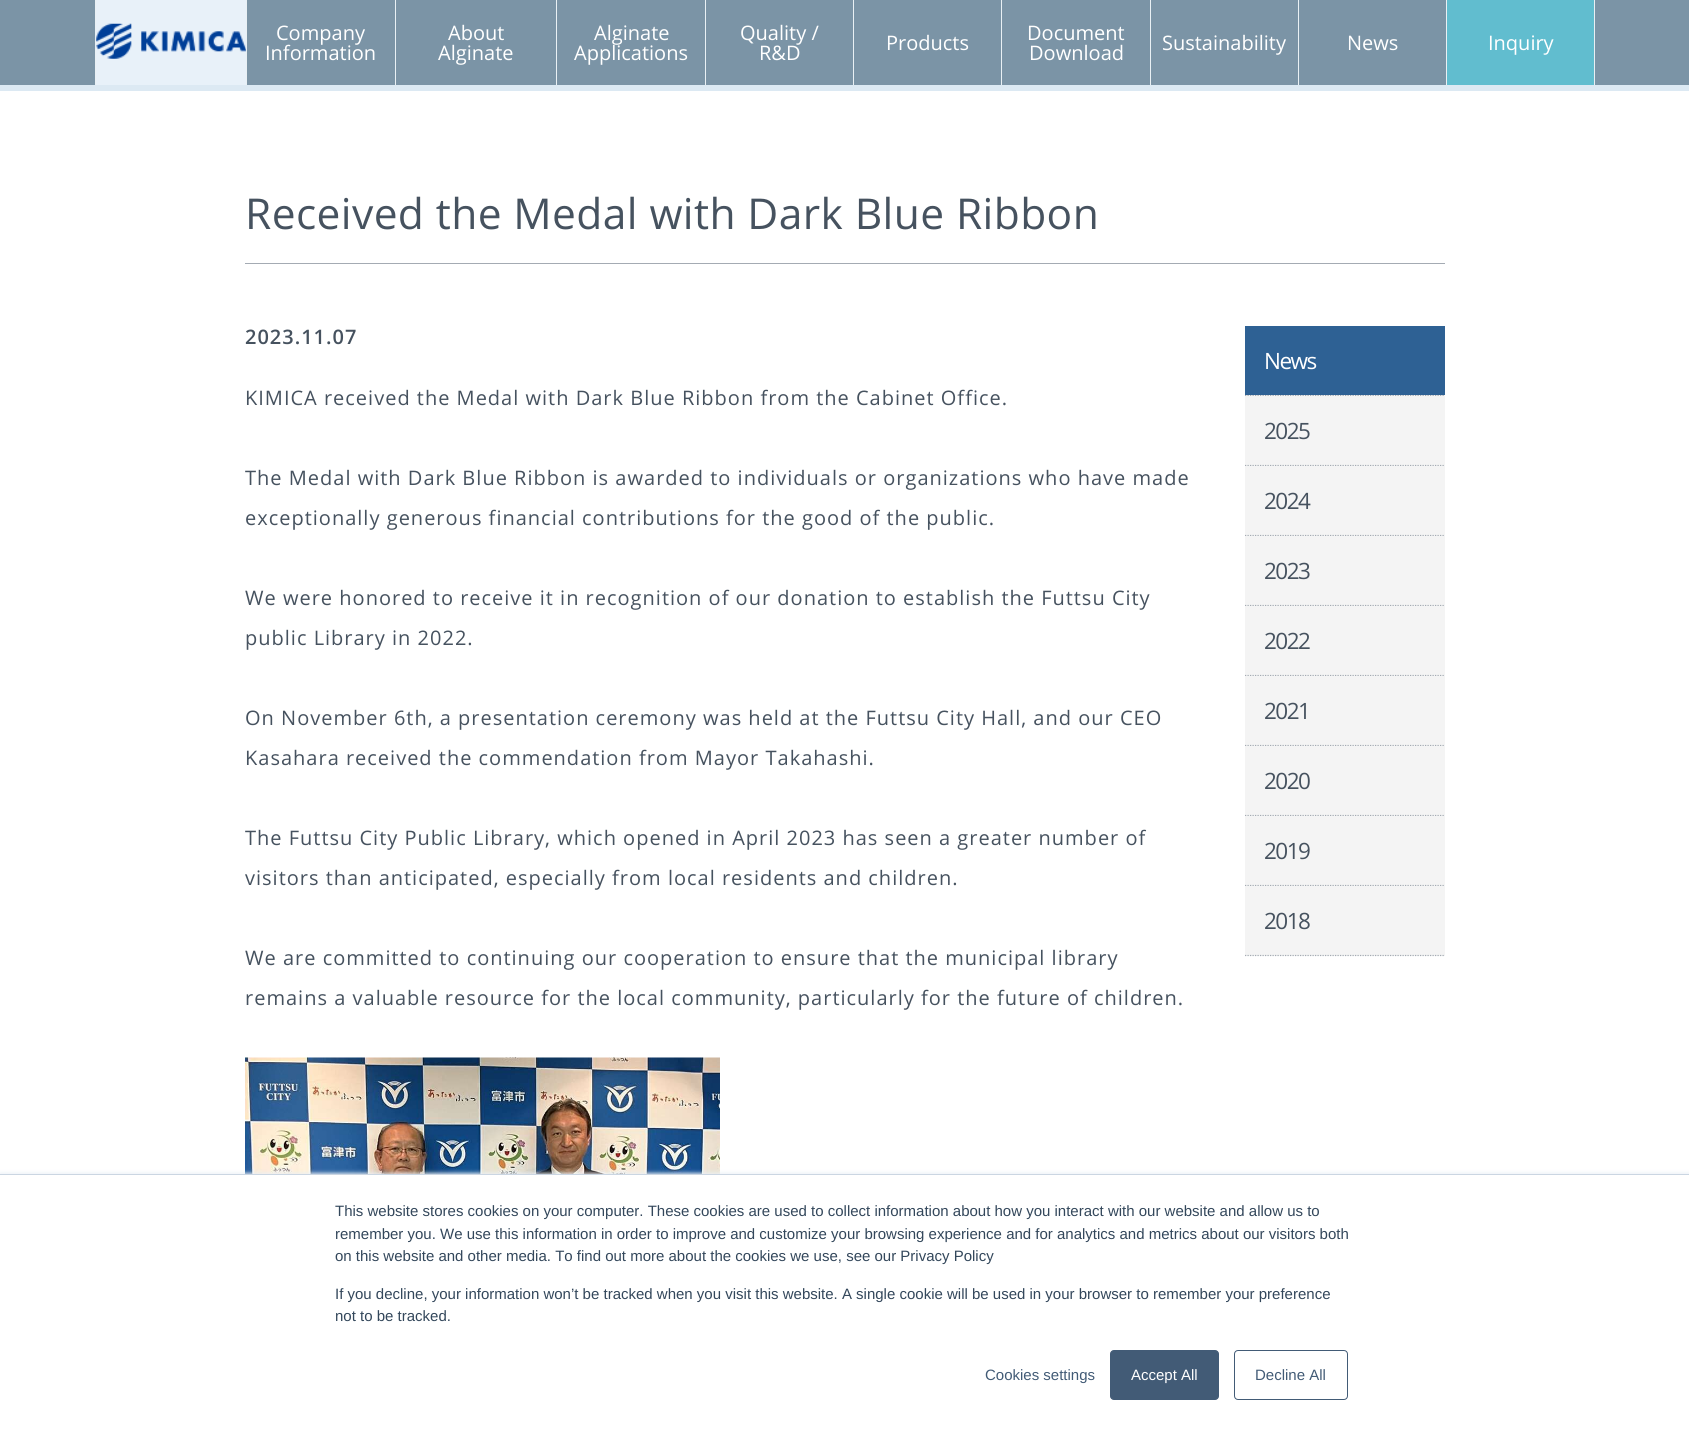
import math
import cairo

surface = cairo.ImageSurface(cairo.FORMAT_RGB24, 1689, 1432)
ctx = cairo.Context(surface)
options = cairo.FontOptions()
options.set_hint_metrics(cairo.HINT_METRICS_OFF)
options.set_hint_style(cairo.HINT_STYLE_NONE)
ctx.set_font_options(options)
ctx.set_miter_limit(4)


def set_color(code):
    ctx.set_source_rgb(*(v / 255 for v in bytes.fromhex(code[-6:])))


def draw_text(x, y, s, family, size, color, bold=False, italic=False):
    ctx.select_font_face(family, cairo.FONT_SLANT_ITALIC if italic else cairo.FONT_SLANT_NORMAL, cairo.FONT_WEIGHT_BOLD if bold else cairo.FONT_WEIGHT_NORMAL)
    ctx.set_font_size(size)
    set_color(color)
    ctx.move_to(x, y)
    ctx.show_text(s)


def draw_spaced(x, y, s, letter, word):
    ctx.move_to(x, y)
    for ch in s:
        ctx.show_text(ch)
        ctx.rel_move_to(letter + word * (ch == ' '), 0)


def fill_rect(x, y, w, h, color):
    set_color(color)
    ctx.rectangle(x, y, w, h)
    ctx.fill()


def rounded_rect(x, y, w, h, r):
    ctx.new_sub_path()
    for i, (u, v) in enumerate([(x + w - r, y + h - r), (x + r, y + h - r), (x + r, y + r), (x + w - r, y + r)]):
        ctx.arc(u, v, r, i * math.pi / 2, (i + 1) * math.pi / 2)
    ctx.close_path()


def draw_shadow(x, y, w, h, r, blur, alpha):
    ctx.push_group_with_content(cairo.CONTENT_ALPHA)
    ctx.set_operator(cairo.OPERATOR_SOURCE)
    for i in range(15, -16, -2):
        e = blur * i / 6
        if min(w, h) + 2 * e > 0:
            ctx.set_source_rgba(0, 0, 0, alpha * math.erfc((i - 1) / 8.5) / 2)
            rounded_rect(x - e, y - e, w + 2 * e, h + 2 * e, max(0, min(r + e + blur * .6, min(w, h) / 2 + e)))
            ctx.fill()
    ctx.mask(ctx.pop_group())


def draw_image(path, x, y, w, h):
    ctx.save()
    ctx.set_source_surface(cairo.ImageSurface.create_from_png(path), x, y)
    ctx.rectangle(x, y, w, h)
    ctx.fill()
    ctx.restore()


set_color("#ffffff")
ctx.paint()
fill_rect(0, 0, 1689, 85, "#7b94a6")
fill_rect(96, 0, 150, 85, "#e8f1f9")
fill_rect(95, 0, 1, 85, "#e9f0f4")
draw_image("assets/img1.png", 96, 23, 150, 36)
fill_rect(246, 0, 1, 85, "#e9f0f4")
draw_text(276, 40, "Company", "Open Sans", 20, "#ffffff")
draw_text(265, 60, "Information", "Open Sans", 20, "#ffffff")
fill_rect(395, 0, 1, 85, "#e9f0f4")
draw_text(448, 40, "About", "Open Sans", 20, "#ffffff")
draw_text(438, 60, "Alginate", "Open Sans", 20, "#ffffff")
fill_rect(556, 0, 1, 85, "#e9f0f4")
draw_text(594, 40, "Alginate", "Open Sans", 20, "#ffffff")
draw_text(574, 60, "Applications", "Open Sans", 20, "#ffffff")
fill_rect(705, 0, 1, 85, "#e9f0f4")
draw_text(740, 40, "Quality /", "Open Sans", 20, "#ffffff")
draw_text(759, 60, "R&D", "Open Sans", 20, "#ffffff")
fill_rect(853, 0, 1, 85, "#e9f0f4")
draw_text(886, 50, "Products", "Open Sans", 20, "#ffffff")
fill_rect(1001, 0, 1, 85, "#e9f0f4")
draw_text(1027, 40, "Document", "Open Sans", 20, "#ffffff")
draw_text(1029, 60, "Download", "Open Sans", 20, "#ffffff")
fill_rect(1150, 0, 1, 85, "#e9f0f4")
draw_text(1162, 50, "Sustainability", "Open Sans", 20, "#ffffff")
fill_rect(1298, 0, 1, 85, "#e9f0f4")
draw_text(1347, 50, "News", "Open Sans", 20, "#ffffff")
fill_rect(1447, 0, 147, 85, "#61bdcf")
fill_rect(1594, 0, 1, 85, "#e9f0f4")
fill_rect(1446, 0, 1, 85, "#e9f0f4")
draw_text(1488, 50, "Inquiry", "Open Sans", 20, "#ffffff")
fill_rect(0, 85, 1689, 6, "#dce9f3")
fill_rect(245, 263, 1200, 1, "#a4abb3")
ctx.set_font_size(42.5)
set_color("#46525f")
draw_spaced(245, 229, "Received the Medal with Dark Blue Ribbon", 0.4, 0)
ctx.select_font_face("Open Sans SemiBold")
ctx.set_font_size(20)
draw_spaced(245, 344, "2023.11.07", 1, 0)
ctx.select_font_face("Open Sans")
draw_spaced(245, 405, "KIMICA received the Medal with Dark Blue Ribbon from the Cabinet Office.", 1, 0)
draw_spaced(245, 485, "The Medal with Dark Blue Ribbon is awarded to individuals or organizations who have made", 1, 0)
draw_spaced(245, 525, "exceptionally generous financial contributions for the good of the public.", 1, 0)
draw_spaced(245, 605, "We were honored to receive it in recognition of our donation to establish the Futtsu City", 1, 0)
draw_spaced(245, 645, "public Library in 2022.", 1, 0)
draw_spaced(245, 725, "On November 6th, a presentation ceremony was held at the Futtsu City Hall, and our CEO", 1, 0)
draw_spaced(245, 765, "Kasahara received the commendation from Mayor Takahashi.", 1, 0)
draw_spaced(245, 845, "The Futtsu City Public Library, which opened in April 2023 has seen a greater number of", 1, 0)
draw_spaced(245, 885, "visitors than anticipated, especially from local residents and children.", 1, 0)
draw_spaced(245, 965, "We are committed to continuing our cooperation to ensure that the municipal library", 1, 0)
draw_spaced(245, 1005, "remains a valuable resource for the local community, particularly for the future of children.", 1, 0)
draw_image("assets/img2.png", 245, 1057, 475, 117)
fill_rect(1246, 395, 199, 1, "#f4f4f4")
ctx.new_path()
ctx.move_to(1245, 395.5)
ctx.line_to(1445, 395.5)
set_color("#a4abb3")
ctx.set_line_width(1.2)
ctx.set_dash([1.25, 1.25])
ctx.stroke()
fill_rect(1245, 326, 200, 69, "#2e6194")
ctx.set_font_size(22.5)
set_color("#ffffff")
draw_spaced(1264, 369, "News", -1.5, 0)
fill_rect(1245, 396, 200, 70, "#f4f4f4")
ctx.new_path()
ctx.move_to(1245, 465.5)
ctx.line_to(1445, 465.5)
set_color("#a4abb3")
ctx.stroke()
set_color("#46525f")
draw_spaced(1264, 439, "2025", -1.5, 0)
fill_rect(1245, 466, 200, 70, "#f4f4f4")
ctx.new_path()
ctx.move_to(1245, 535.5)
ctx.line_to(1445, 535.5)
set_color("#a4abb3")
ctx.stroke()
set_color("#46525f")
draw_spaced(1264, 509, "2024", -1.5, 0)
fill_rect(1245, 536, 200, 70, "#f4f4f4")
ctx.new_path()
ctx.move_to(1245, 605.5)
ctx.line_to(1445, 605.5)
set_color("#a4abb3")
ctx.stroke()
set_color("#46525f")
draw_spaced(1264, 579, "2023", -1.5, 0)
fill_rect(1245, 606, 200, 70, "#f4f4f4")
ctx.new_path()
ctx.move_to(1245, 675.5)
ctx.line_to(1445, 675.5)
set_color("#a4abb3")
ctx.stroke()
set_color("#46525f")
draw_spaced(1264, 649, "2022", -1.5, 0)
fill_rect(1245, 676, 200, 70, "#f4f4f4")
ctx.new_path()
ctx.move_to(1245, 745.5)
ctx.line_to(1445, 745.5)
set_color("#a4abb3")
ctx.stroke()
set_color("#46525f")
draw_spaced(1264, 719, "2021", -1.5, 0)
fill_rect(1245, 746, 200, 70, "#f4f4f4")
ctx.new_path()
ctx.move_to(1245, 815.5)
ctx.line_to(1445, 815.5)
set_color("#a4abb3")
ctx.stroke()
set_color("#46525f")
draw_spaced(1264, 789, "2020", -1.5, 0)
fill_rect(1245, 816, 200, 70, "#f4f4f4")
ctx.new_path()
ctx.move_to(1245, 885.5)
ctx.line_to(1445, 885.5)
set_color("#a4abb3")
ctx.stroke()
set_color("#46525f")
draw_spaced(1264, 859, "2019", -1.5, 0)
fill_rect(1245, 886, 200, 70, "#f4f4f4")
ctx.new_path()
ctx.move_to(1245, 955.5)
ctx.line_to(1445, 955.5)
set_color("#a4abb3")
ctx.stroke()
set_color("#46525f")
draw_spaced(1264, 929, "2018", -1.5, 0)
set_color("#eaf0f6")
draw_shadow(0, 1173, 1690, 258, 0, 2, 1)
fill_rect(0, 1175, 1689, 257, "#ffffff")
fill_rect(0, 1174, 1689, 1, "#cbd6e2")
draw_text(335, 1216, "This website stores cookies on your computer. These cookies are used to collect information about how you interact with our website and allow us to", "Liberation Sans", 15, "#33475b")
draw_text(335, 1239, "remember you. We use this information in order to improve and customize your browsing experience and for analytics and metrics about our visitors both", "Liberation Sans", 15, "#33475b")
draw_text(335, 1261, "on this website and other media. To find out more about the cookies we use, see our Privacy Policy", "Liberation Sans", 15, "#33475b")
draw_text(335, 1299, "If you decline, your information won’t be tracked when you visit this website. A single cookie will be used in your browser to remember your preference", "Liberation Sans", 15, "#33475b")
draw_text(335, 1321, "not to be tracked.", "Liberation Sans", 15, "#33475b")
draw_text(985, 1380, "Cookies settings", "Liberation Sans", 15, "#425b76")
rounded_rect(1110.5, 1350.5, 108, 49, 3.5)
ctx.fill_preserve()
ctx.set_line_width(1)
ctx.set_dash([])
ctx.stroke()
draw_text(1131, 1380, "Accept All", "Liberation Sans", 15, "#ffffff")
rounded_rect(1234.5, 1350.5, 113, 49, 3.5)
set_color("#425b76")
ctx.stroke()
draw_text(1255, 1380, "Decline All", "Liberation Sans", 15, "#425b76")
surface.write_to_png("output.png")
